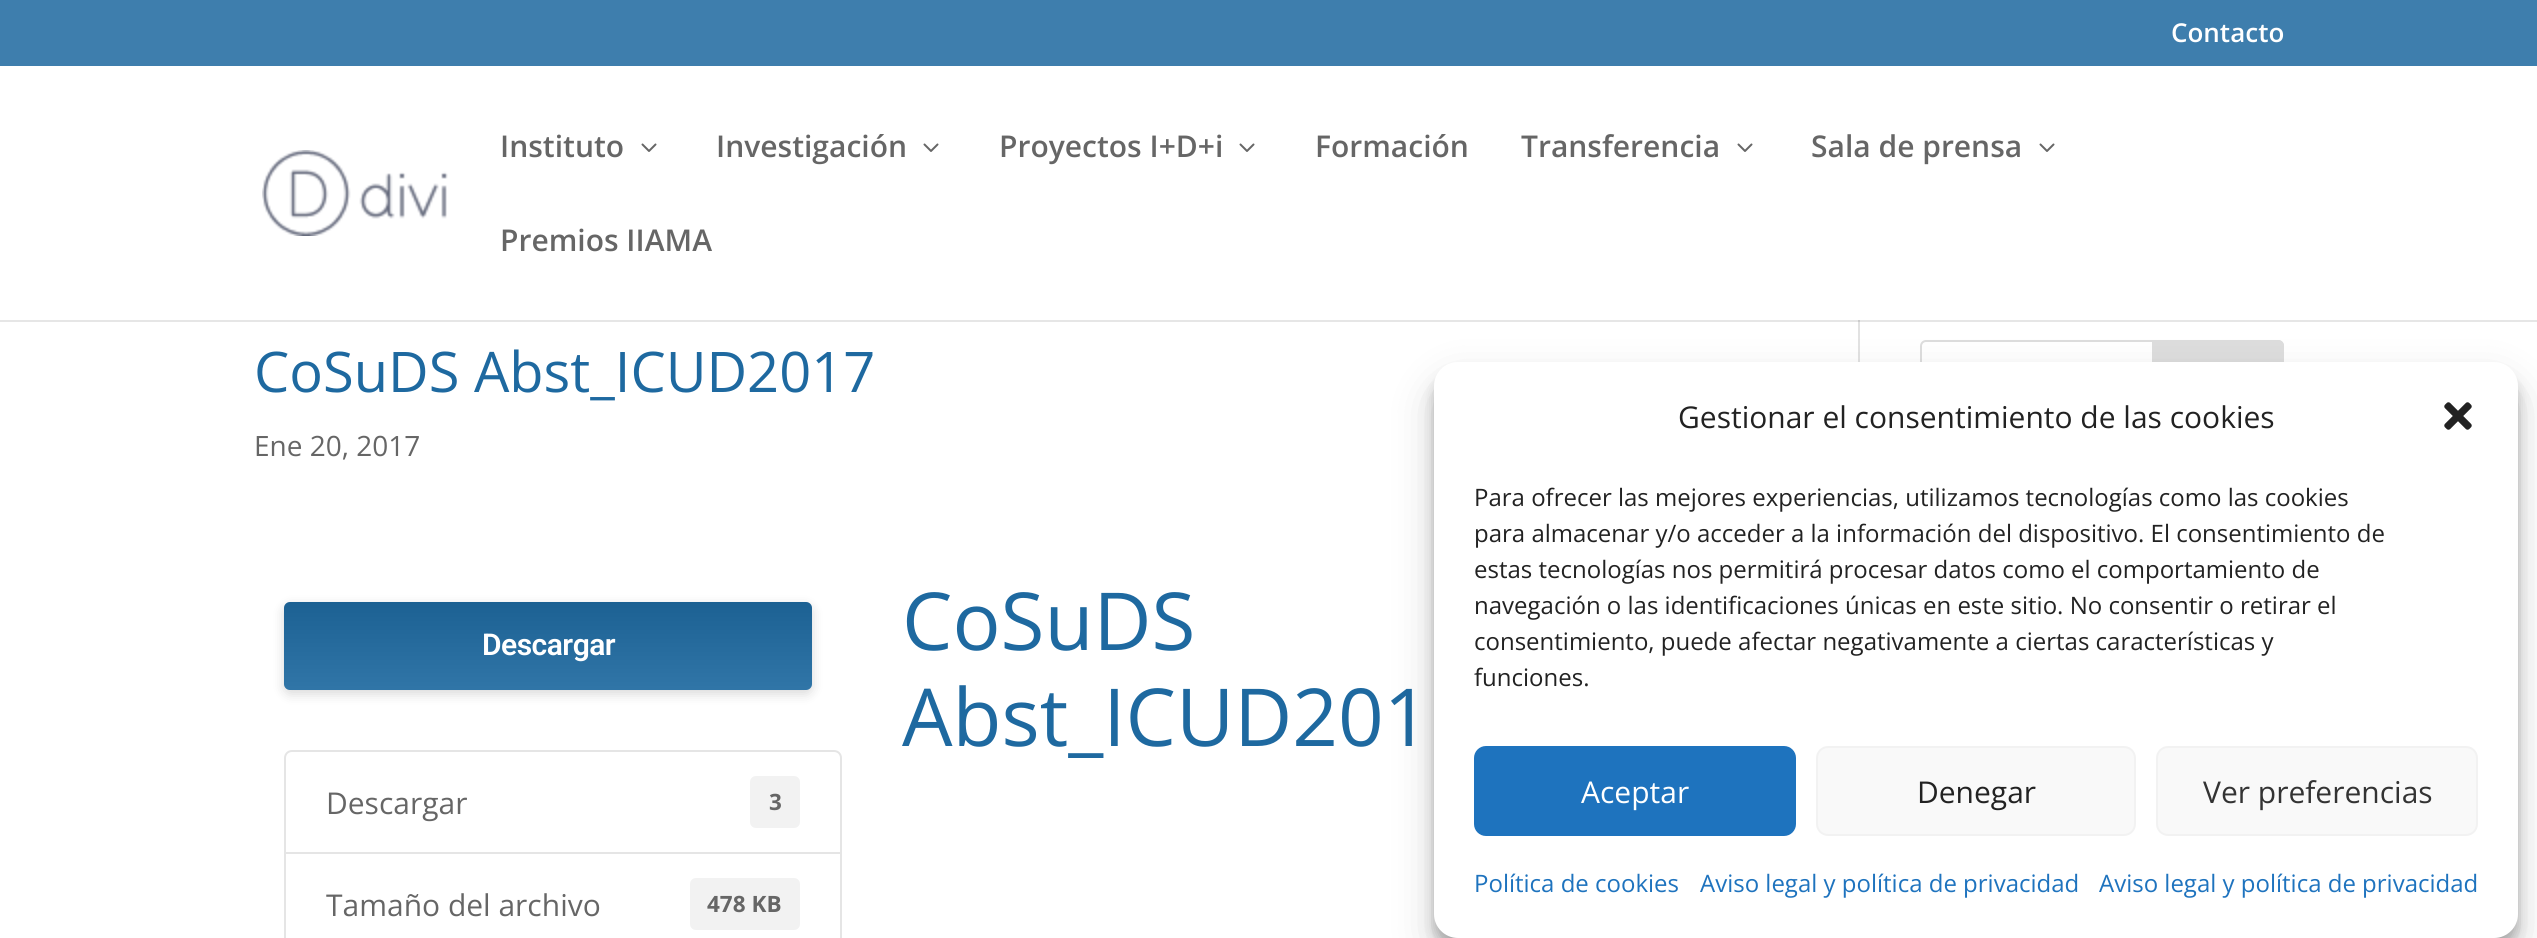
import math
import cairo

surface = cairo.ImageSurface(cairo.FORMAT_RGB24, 2537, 938)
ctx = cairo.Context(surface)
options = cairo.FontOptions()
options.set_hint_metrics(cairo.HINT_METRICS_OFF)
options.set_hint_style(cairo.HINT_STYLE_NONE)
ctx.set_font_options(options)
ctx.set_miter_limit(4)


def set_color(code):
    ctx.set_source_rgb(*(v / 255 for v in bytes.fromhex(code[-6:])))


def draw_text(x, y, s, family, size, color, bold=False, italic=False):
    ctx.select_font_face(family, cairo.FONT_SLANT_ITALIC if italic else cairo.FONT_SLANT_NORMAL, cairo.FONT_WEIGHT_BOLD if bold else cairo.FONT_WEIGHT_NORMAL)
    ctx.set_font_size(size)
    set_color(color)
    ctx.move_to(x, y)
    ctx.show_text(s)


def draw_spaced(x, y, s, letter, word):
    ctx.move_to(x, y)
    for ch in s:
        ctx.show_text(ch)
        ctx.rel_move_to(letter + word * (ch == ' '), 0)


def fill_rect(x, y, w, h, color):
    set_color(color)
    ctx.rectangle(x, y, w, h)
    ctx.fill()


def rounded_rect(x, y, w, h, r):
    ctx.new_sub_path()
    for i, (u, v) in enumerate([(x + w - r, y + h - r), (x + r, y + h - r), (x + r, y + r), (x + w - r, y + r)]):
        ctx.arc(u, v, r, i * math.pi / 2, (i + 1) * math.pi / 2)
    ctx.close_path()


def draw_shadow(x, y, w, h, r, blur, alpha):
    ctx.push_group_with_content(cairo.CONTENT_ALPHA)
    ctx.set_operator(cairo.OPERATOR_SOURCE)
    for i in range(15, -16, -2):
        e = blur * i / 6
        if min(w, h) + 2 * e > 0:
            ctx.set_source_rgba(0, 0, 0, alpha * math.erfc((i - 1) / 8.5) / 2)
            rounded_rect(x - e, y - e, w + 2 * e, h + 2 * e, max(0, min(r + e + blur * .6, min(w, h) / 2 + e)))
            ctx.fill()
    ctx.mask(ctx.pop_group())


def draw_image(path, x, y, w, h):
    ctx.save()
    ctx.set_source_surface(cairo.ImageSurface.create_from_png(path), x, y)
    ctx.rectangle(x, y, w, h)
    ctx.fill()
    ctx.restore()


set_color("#ffffff")
ctx.paint()
fill_rect(0, 320, 2537, 2, "#e6e6e6")
fill_rect(0, 0, 2537, 66, "#3e7ead")
draw_text(2171, 42, "Contacto", "Open Sans SemiBold", 26, "#ffffff")
draw_image("assets/img1.png", 262, 150, 186, 86)
draw_text(500, 157, "Instituto", "Open Sans SemiBold", 30, "#666666")
draw_image("assets/img2.png", 641, 143, 16, 9)
draw_text(716, 157, "Investigación", "Open Sans SemiBold", 30, "#666666")
draw_image("assets/img2.png", 923, 143, 16, 9)
draw_text(999, 157, "Proyectos I+D+i", "Open Sans SemiBold", 30, "#666666")
draw_image("assets/img2.png", 1239, 143, 16, 9)
draw_text(1315, 157, "Formación", "Open Sans SemiBold", 30, "#666666")
draw_text(1521, 157, "Transferencia", "Open Sans SemiBold", 30, "#666666")
draw_image("assets/img2.png", 1737, 143, 16, 9)
draw_text(1811, 157, "Sala de prensa", "Open Sans SemiBold", 30, "#666666")
draw_image("assets/img2.png", 2039, 143, 16, 9)
draw_text(500, 251, "Premios IIAMA", "Open Sans SemiBold", 30, "#666666")
fill_rect(1858, 322, 2, 40, "#e2e2e2")
fill_rect(1858, 320, 2, 2, "#cbcbcb")
draw_text(254, 392, "CoSuDS Abst_ICUD2017", "Open Sans", 56, "#1e69a0")
draw_text(254, 456, "Ene 20, 2017", "Open Sans", 28, "#666666")
set_color("#000000")
draw_shadow(284, 606, 528, 88, 6, 6, 0.15)
set_color("#1e69a0")
rounded_rect(284, 602, 528, 88, 6)
ctx.fill()
gradient = cairo.LinearGradient(548, 602, 548, 690)
gradient.add_color_stop_rgba(0, 0, 0, 0, 0.08)
gradient.add_color_stop_rgba(1, 1, 1, 1, 0.08)
ctx.set_source(gradient)
rounded_rect(284, 602, 528, 88, 6)
ctx.fill()
ctx.select_font_face("Roboto SemiBold")
ctx.set_font_size(30)
set_color("#ffffff")
draw_spaced(482, 655, "Descargar", -0.5, 0)
ctx.new_path()
ctx.move_to(292, 751)
ctx.line_to(834, 751)
ctx.curve_to(838, 751, 841, 754, 841, 758)
ctx.line_to(841, 853)
ctx.line_to(285, 853)
ctx.line_to(285, 758)
ctx.curve_to(285, 754, 288, 751, 292, 751)
ctx.close_path()
set_color("#e5e5e5")
ctx.stroke()
draw_text(326, 814, "Descargar", "Open Sans", 30, "#666666")
set_color("#f2f2f2")
rounded_rect(750, 776, 50, 52, 6)
ctx.fill()
draw_text(769, 810, "3", "Open Sans", 22.5, "#666666", bold=True)
ctx.rectangle(285, 853, 556, 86)
set_color("#e5e5e5")
ctx.stroke()
draw_text(326, 916, "Tamaño del archivo", "Open Sans", 30, "#666666")
set_color("#f2f2f2")
rounded_rect(690, 878, 110, 52, 6)
ctx.fill()
draw_text(707, 912, "478 KB", "Open Sans", 22.5, "#666666", bold=True)
draw_text(902, 650, "CoSuDS", "Open Sans", 80, "#1e69a0")
draw_text(902, 746, "Abst_ICUD201", "Open Sans", 80, "#1e69a0")
rounded_rect(1921, 341, 362, 78, 5)
set_color("#dddddd")
ctx.stroke()
ctx.new_path()
ctx.move_to(2153, 341)
ctx.line_to(2278, 341)
ctx.curve_to(2281, 341, 2283, 343, 2283, 346)
ctx.line_to(2283, 414)
ctx.curve_to(2283, 417, 2281, 419, 2278, 419)
ctx.line_to(2153, 419)
ctx.close_path()
ctx.fill_preserve()
ctx.stroke()
set_color("#000000")
draw_shadow(1434, 374, 1084, 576, 24, 6, 0.23)
draw_shadow(1434, 382, 1084, 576, 24, 20, 0.19)
set_color("#ffffff")
rounded_rect(1434, 362, 1084, 576, 24)
ctx.fill()
draw_text(1678, 428, "Gestionar el consentimiento de las cookies", "Open Sans", 30, "#222222")
draw_image("assets/img3.png", 2444, 402, 28, 28)
draw_text(1474, 506, "Para ofrecer las mejores experiencias, utilizamos tecnologías como las cookies", "Open Sans", 24, "#222222")
draw_text(1474, 542, "para almacenar y/o acceder a la información del dispositivo. El consentimiento de", "Open Sans", 24, "#222222")
draw_text(1474, 578, "estas tecnologías nos permitirá procesar datos como el comportamiento de", "Open Sans", 24, "#222222")
draw_text(1474, 614, "navegación o las identificaciones únicas en este sitio. No consentir o retirar el", "Open Sans", 24, "#222222")
draw_text(1474, 650, "consentimiento, puede afectar negativamente a ciertas características y", "Open Sans", 24, "#222222")
draw_text(1474, 686, "funciones.", "Open Sans", 24, "#222222")
set_color("#1e73be")
rounded_rect(1475, 747, 320, 88, 11)
ctx.fill_preserve()
ctx.stroke()
draw_text(1581, 803, "Aceptar", "Open Sans", 30, "#ffffff")
set_color("#f9f9f9")
rounded_rect(1817, 747, 318, 88, 11)
ctx.fill_preserve()
set_color("#f2f2f2")
ctx.stroke()
draw_text(1917, 803, "Denegar", "Open Sans", 30, "#222222")
set_color("#f9f9f9")
rounded_rect(2157, 747, 320, 88, 11)
ctx.fill_preserve()
set_color("#f2f2f2")
ctx.stroke()
draw_text(2203, 803, "Ver preferencias", "Open Sans", 30, "#333333")
draw_text(1474, 892, "Política de cookies", "Open Sans", 24, "#1e73be")
draw_text(1700, 892, "Aviso legal y política de privacidad", "Open Sans", 24, "#1e73be")
draw_text(2099, 892, "Aviso legal y política de privacidad", "Open Sans", 24, "#1e73be")
surface.write_to_png("output.png")
